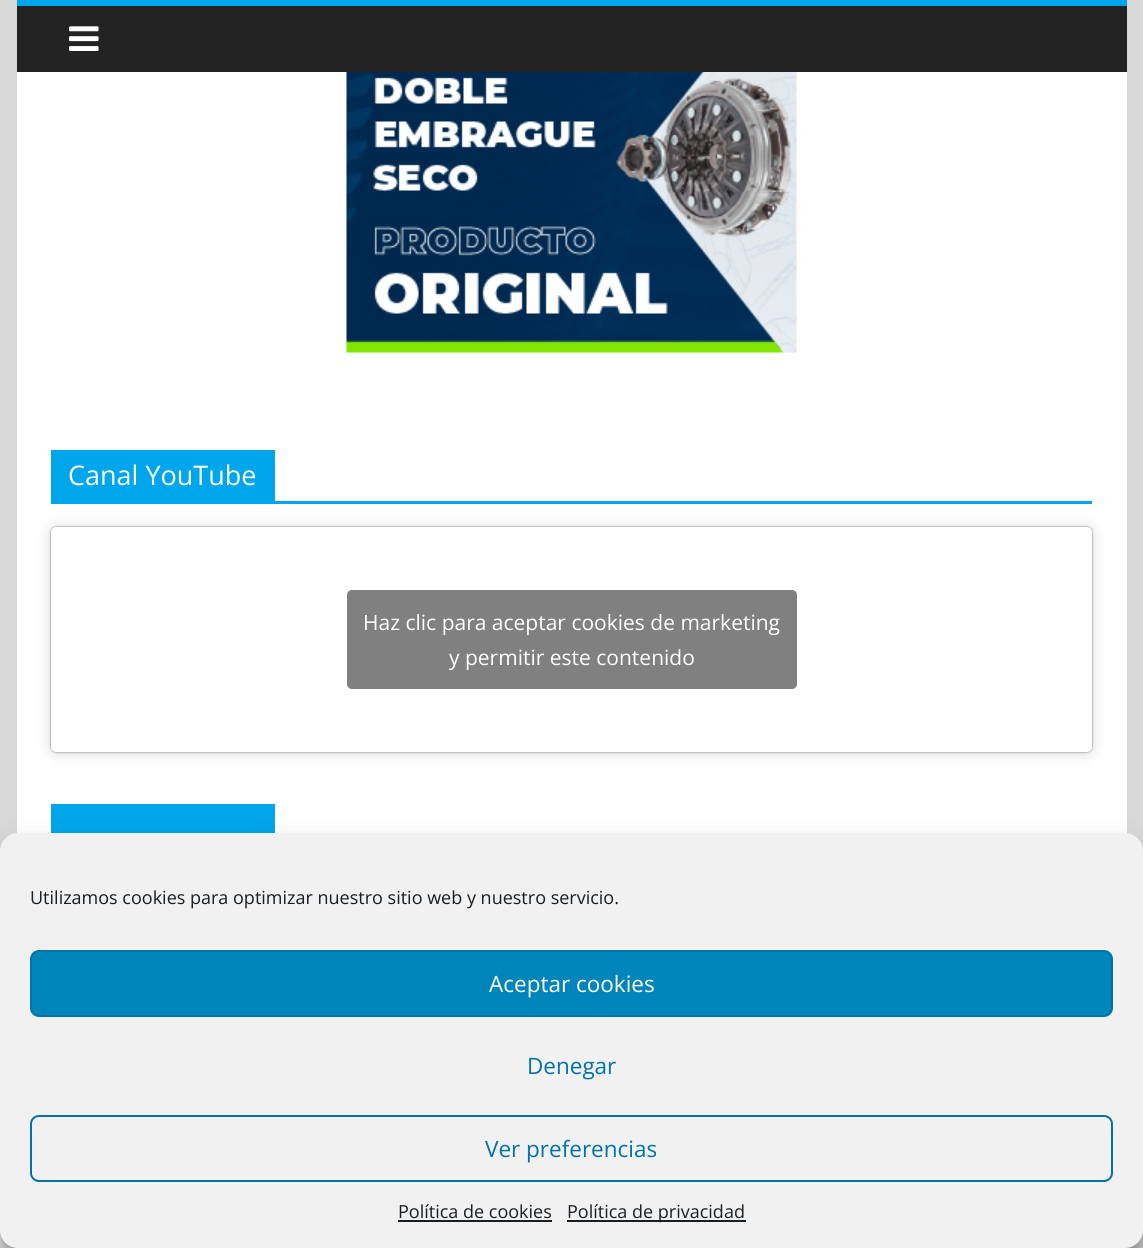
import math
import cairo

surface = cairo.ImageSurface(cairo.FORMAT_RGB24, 1143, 1248)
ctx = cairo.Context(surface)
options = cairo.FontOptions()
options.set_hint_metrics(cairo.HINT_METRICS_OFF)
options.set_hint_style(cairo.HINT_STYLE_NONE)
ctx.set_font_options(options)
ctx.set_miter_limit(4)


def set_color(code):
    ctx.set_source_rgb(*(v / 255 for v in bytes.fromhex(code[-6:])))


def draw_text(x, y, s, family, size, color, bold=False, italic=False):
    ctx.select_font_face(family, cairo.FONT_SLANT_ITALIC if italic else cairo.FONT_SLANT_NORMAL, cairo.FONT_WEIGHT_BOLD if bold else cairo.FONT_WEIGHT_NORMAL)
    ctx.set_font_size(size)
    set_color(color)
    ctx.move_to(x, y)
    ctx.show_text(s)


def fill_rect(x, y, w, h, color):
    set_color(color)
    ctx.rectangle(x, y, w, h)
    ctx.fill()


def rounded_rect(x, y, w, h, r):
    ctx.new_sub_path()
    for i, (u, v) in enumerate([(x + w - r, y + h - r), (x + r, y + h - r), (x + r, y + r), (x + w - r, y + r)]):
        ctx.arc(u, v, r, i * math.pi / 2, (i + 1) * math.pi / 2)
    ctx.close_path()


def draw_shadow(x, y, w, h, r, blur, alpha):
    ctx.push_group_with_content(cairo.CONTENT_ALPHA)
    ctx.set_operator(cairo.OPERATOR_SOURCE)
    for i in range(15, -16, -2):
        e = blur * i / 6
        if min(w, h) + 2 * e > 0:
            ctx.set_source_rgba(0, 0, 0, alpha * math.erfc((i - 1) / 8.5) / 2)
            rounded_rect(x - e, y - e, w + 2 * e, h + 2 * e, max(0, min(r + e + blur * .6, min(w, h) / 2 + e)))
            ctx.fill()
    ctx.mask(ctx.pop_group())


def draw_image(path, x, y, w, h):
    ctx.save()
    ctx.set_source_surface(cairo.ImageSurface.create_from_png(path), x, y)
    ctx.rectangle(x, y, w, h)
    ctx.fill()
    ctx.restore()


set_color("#d8d8d8")
ctx.paint()
fill_rect(0, 1230, 1143, 18, "#ececec")
fill_rect(17, 6, 1110, 66, "#232323")
fill_rect(17, 0, 1110, 6, "#00a6eb")
draw_image("assets/img1.png", 69, 26, 30, 25)
fill_rect(17, 72, 1110, 1176, "#ffffff")
draw_image("assets/img2.png", 346, 72, 451, 281)
fill_rect(51, 501, 1041, 3, "#00a6eb")
fill_rect(51, 450, 224, 51, "#00a6eb")
draw_text(68, 485, "Canal YouTube", "Open Sans", 27, "#ffffff")
set_color("#000000")
draw_shadow(51, 528, 1041, 225, 5, 7.5, 0.15)
draw_shadow(51, 527, 1041, 225, 5, 1, 0.5)
set_color("#ffffff")
rounded_rect(51, 527, 1041, 225, 5)
ctx.fill()
set_color("#808080")
rounded_rect(347, 590, 450, 99, 5)
ctx.fill()
draw_text(363, 630, "Haz clic para aceptar cookies de marketing", "Open Sans", 21, "#ffffff")
draw_text(449, 665, "y permitir este contenido", "Open Sans", 21, "#ffffff")
fill_rect(51, 804, 224, 29, "#00a6eb")
ctx.set_source_rgba(0.8, 0.8, 0.8, 0.6)
ctx.rectangle(1125, 1230, 18, 18)
ctx.fill()
set_color("#000000")
draw_shadow(0, 842, 1143, 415, 18, 4.5, 0.23)
draw_shadow(0, 848, 1143, 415, 18, 15, 0.19)
set_color("#f1f1f1")
rounded_rect(0, 833, 1143, 415, 18)
ctx.fill()
draw_text(30, 904, "Utilizamos cookies para optimizar nuestro sitio web y nuestro servicio.", "Open Sans", 18, "#191e23")
set_color("#0085ba")
rounded_rect(31, 951, 1081, 65, 8)
ctx.fill_preserve()
set_color("#0073aa")
ctx.stroke()
draw_text(489, 992, "Aceptar cookies", "Open Sans", 22.5, "#ffffff")
draw_text(527, 1074, "Denegar", "Open Sans", 22.5, "#0073aa")
rounded_rect(31, 1116, 1081, 65, 8)
ctx.stroke()
draw_text(485, 1157, "Ver preferencias", "Open Sans", 22.5, "#0073aa")
draw_text(398, 1218, "Política de cookies", "Open Sans", 18, "#191e23")
fill_rect(398, 1220, 154, 2, "#191e23")
fill_rect(567, 1220, 179, 2, "#191e23")
draw_text(567, 1218, "Política de privacidad", "Open Sans", 18, "#191e23")
surface.write_to_png("output.png")
